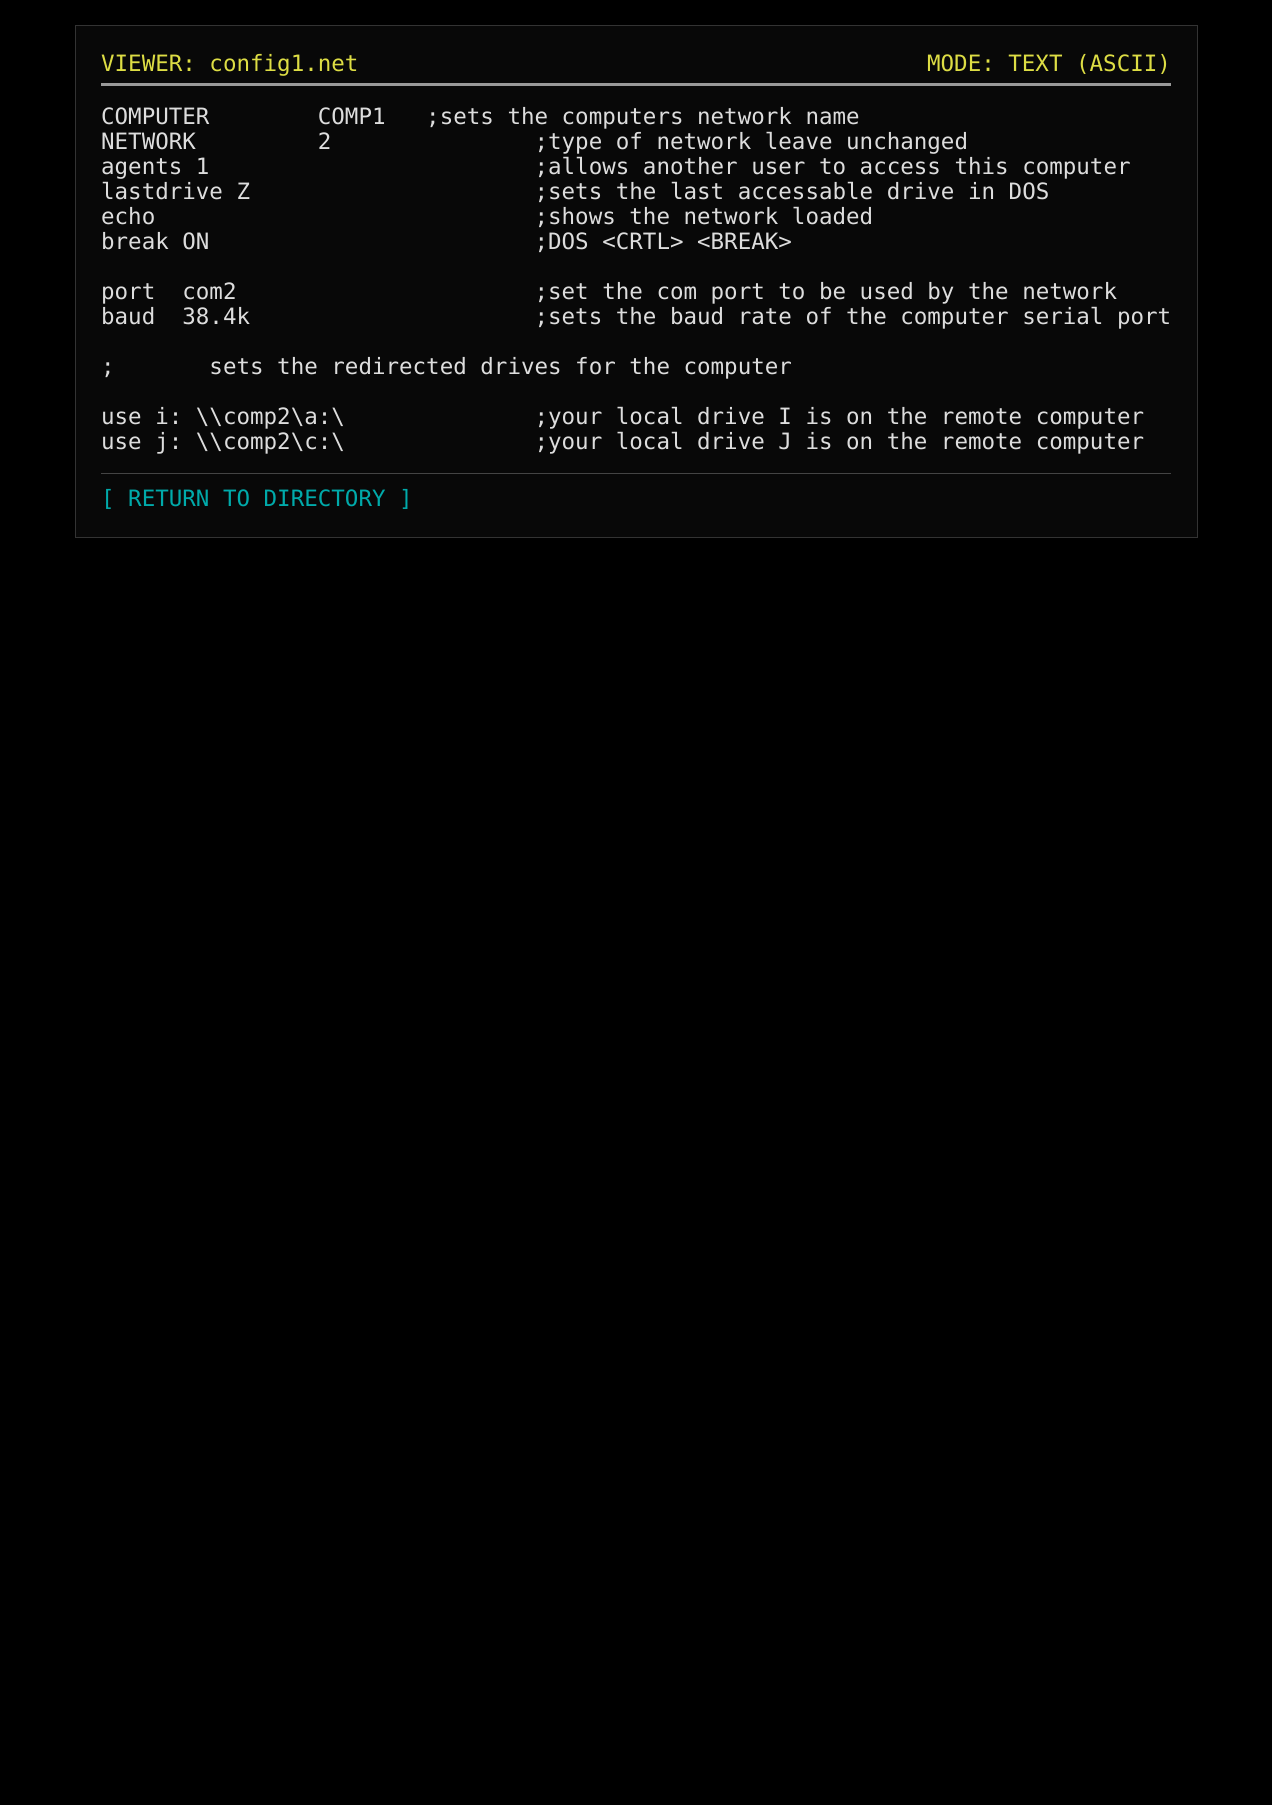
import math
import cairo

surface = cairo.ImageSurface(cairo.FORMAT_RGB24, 1272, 1805)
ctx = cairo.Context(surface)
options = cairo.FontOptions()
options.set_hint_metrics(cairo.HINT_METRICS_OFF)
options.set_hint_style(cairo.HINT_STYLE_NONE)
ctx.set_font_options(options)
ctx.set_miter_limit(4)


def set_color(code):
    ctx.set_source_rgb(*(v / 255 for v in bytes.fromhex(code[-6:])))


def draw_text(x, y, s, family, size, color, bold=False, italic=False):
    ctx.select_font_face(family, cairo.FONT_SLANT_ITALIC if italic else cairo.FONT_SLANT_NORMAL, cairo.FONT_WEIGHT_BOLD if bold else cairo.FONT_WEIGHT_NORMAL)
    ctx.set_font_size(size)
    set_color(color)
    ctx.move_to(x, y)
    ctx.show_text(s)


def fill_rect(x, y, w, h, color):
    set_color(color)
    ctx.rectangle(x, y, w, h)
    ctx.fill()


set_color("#000000")
ctx.paint()
set_color("#080808")
ctx.rectangle(75.5, 25.5, 1122, 512)
ctx.fill_preserve()
set_color("#333333")
ctx.set_line_width(1)
ctx.stroke()
fill_rect(101, 83, 1070, 3, "#999999")
draw_text(101, 71, "VIEWER: config1.net", "DejaVu Sans Mono", 22.5, "#dddd44")
draw_text(927, 71, "MODE: TEXT (ASCII)", "DejaVu Sans Mono", 22.5, "#dddd44")
draw_text(101, 124, "COMPUTER        COMP1   ;sets the computers network name", "DejaVu Sans Mono", 22.5, "#dddddd")
draw_text(101, 149, "NETWORK         2               ;type of network leave unchanged", "DejaVu Sans Mono", 22.5, "#dddddd")
draw_text(101, 174, "agents 1                        ;allows another user to access this computer", "DejaVu Sans Mono", 22.5, "#dddddd")
draw_text(101, 199, "lastdrive Z                     ;sets the last accessable drive in DOS", "DejaVu Sans Mono", 22.5, "#dddddd")
draw_text(101, 224, "echo                            ;shows the network loaded", "DejaVu Sans Mono", 22.5, "#dddddd")
draw_text(101, 249, "break ON                        ;DOS <CRTL> <BREAK>", "DejaVu Sans Mono", 22.5, "#dddddd")
draw_text(101, 299, "port  com2                      ;set the com port to be used by the network", "DejaVu Sans Mono", 22.5, "#dddddd")
draw_text(101, 324, "baud  38.4k                     ;sets the baud rate of the computer serial port", "DejaVu Sans Mono", 22.5, "#dddddd")
draw_text(101, 374, ";       sets the redirected drives for the computer", "DejaVu Sans Mono", 22.5, "#dddddd")
draw_text(101, 424, "use i: \\\\comp2\\a:\\              ;your local drive I is on the remote computer", "DejaVu Sans Mono", 22.5, "#dddddd")
draw_text(101, 449, "use j: \\\\comp2\\c:\\              ;your local drive J is on the remote computer", "DejaVu Sans Mono", 22.5, "#dddddd")
fill_rect(101, 473, 1070, 1, "#444444")
draw_text(101, 506, "[ RETURN TO DIRECTORY ]", "DejaVu Sans Mono", 22.5, "#00aaaa")
surface.write_to_png("output.png")
